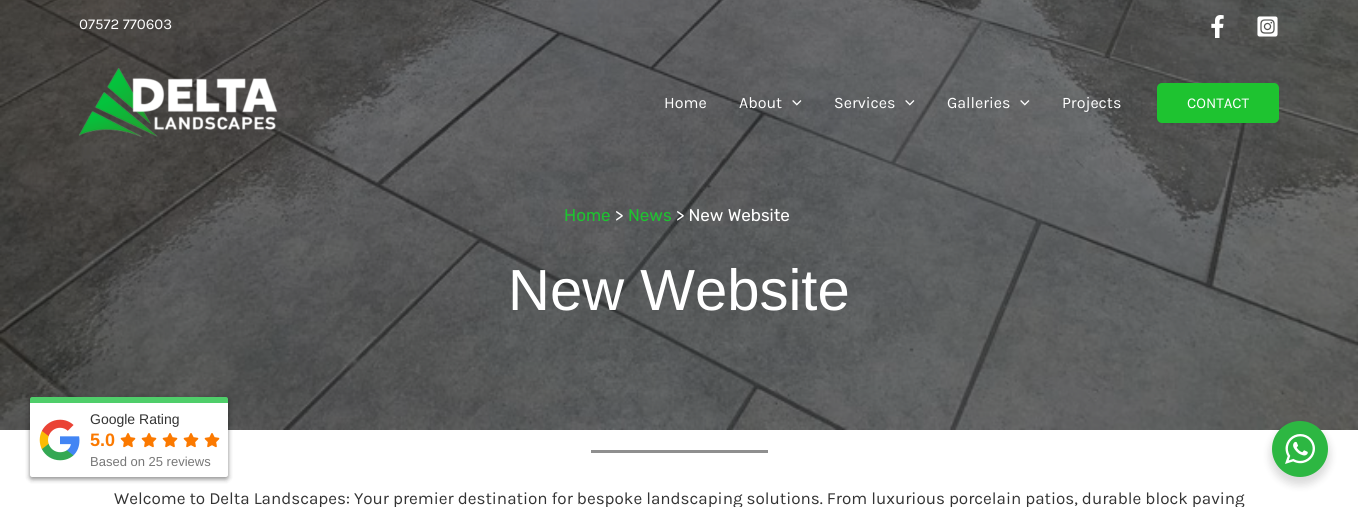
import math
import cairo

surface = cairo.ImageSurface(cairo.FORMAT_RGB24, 1358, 507)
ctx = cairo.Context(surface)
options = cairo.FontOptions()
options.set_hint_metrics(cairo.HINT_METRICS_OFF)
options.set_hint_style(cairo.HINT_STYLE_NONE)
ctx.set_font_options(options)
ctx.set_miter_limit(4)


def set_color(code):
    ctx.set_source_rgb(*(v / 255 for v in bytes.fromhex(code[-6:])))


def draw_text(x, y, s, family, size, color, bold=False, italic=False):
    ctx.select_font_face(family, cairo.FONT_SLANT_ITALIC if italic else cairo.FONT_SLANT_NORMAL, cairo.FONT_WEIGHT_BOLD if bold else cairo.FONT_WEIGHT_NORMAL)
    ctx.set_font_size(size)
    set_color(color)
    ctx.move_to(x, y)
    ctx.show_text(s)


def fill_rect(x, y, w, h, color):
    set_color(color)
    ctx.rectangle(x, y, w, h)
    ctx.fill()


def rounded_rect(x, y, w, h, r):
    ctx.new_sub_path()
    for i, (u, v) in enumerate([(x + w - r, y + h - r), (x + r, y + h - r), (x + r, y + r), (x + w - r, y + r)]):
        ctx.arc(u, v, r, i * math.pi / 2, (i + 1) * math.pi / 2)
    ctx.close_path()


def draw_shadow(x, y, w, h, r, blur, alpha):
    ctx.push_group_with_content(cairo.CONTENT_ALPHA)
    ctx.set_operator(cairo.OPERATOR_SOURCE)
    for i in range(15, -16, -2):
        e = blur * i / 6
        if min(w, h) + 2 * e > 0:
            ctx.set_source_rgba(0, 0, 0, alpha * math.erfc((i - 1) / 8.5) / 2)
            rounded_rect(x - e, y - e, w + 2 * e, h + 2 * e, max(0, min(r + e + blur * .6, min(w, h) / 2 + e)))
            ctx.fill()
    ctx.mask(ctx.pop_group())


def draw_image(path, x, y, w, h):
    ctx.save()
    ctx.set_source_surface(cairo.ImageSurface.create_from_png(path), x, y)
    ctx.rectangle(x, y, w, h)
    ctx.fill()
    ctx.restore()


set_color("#ffffff")
ctx.paint()
draw_image("assets/img7.png", 0, 0, 1358, 430)
draw_text(79, 29, "07572 770603", "Karla", 15, "#ffffff")
draw_image("assets/img1.png", 1211, 15, 13, 23)
draw_image("assets/img2.png", 1257, 16, 21, 21)
draw_image("assets/img3.png", 79, 68, 199, 69)
draw_text(664, 108, "Home", "Karla", 16, "#ffffff")
draw_text(739, 108, "About", "Karla", 16, "#ffffff")
draw_image("assets/img4.png", 792, 100, 10, 6)
draw_text(834, 108, "Services", "Karla", 16, "#ffffff")
draw_image("assets/img5.png", 905, 100, 10, 6)
draw_text(947, 108, "Galleries", "Karla", 16, "#ffffff")
draw_image("assets/img6.png", 1020, 100, 10, 6)
draw_text(1062, 108, "Projects", "Karla", 16, "#ffffff")
set_color("#1ec330")
rounded_rect(1157, 83, 122, 40, 5)
ctx.fill()
draw_text(1187, 108, "CONTACT", "Karla", 15, "#ffffff")
draw_text(564, 221, "Home", "Rubik", 17, "#1ec330")
draw_text(615, 221, ">", "Rubik", 17, "#ffffff")
draw_text(628, 221, "News", "Rubik", 17, "#1ec330")
draw_text(676, 221, "> New Website", "Rubik", 17, "#ffffff")
draw_text(508, 310, "New Website", "Liberation Sans", 58, "#ffffff")
fill_rect(591, 450, 177, 3, "#8f8f8f")
draw_text(114, 504, "Welcome to Delta Landscapes: Your premier destination for bespoke landscaping solutions. From luxurious porcelain patios, durable block paving", "Karla", 17, "#333333")
set_color("#000000")
draw_shadow(30, 399, 198, 80, 2, 2.5, 0.26)
draw_shadow(1270, 425, 60, 60, 30, 4, 0.14)
set_color("#2db742")
ctx.arc(1300, 449, 28, 0, 2 * math.pi)
ctx.fill()
draw_image("assets/img8.png", 1285, 434, 30, 30)
set_color("#000000")
draw_shadow(30, 399, 198, 80, 2, 2.5, 0.26)
set_color("#4fce6a")
ctx.new_path()
ctx.move_to(32, 397)
ctx.line_to(226, 397)
ctx.curve_to(227, 397, 228, 398, 228, 399)
ctx.line_to(228, 403)
ctx.line_to(30, 403)
ctx.line_to(30, 399)
ctx.curve_to(30, 398, 31, 397, 32, 397)
ctx.close_path()
ctx.fill()
set_color("#ffffff")
ctx.new_path()
ctx.move_to(30, 403)
ctx.line_to(228, 403)
ctx.line_to(228, 475)
ctx.curve_to(228, 476, 227, 477, 226, 477)
ctx.line_to(32, 477)
ctx.curve_to(31, 477, 30, 476, 30, 475)
ctx.close_path()
ctx.fill()
draw_image("assets/img9.png", 39, 419, 41, 42)
draw_text(90, 424, "Google Rating", "Liberation Sans", 14, "#333333")
draw_text(90, 446, "5.0", "Liberation Sans", 18, "#fb7900", bold=True)
draw_image("assets/img10.png", 120, 433, 16, 15)
draw_image("assets/img10.png", 141, 433, 16, 15)
draw_image("assets/img10.png", 162, 433, 16, 15)
draw_image("assets/img10.png", 183, 433, 16, 15)
draw_image("assets/img10.png", 204, 433, 16, 15)
draw_text(90, 466, "Based on 25 reviews", "Liberation Sans", 13, "#777777")
surface.write_to_png("output.png")
